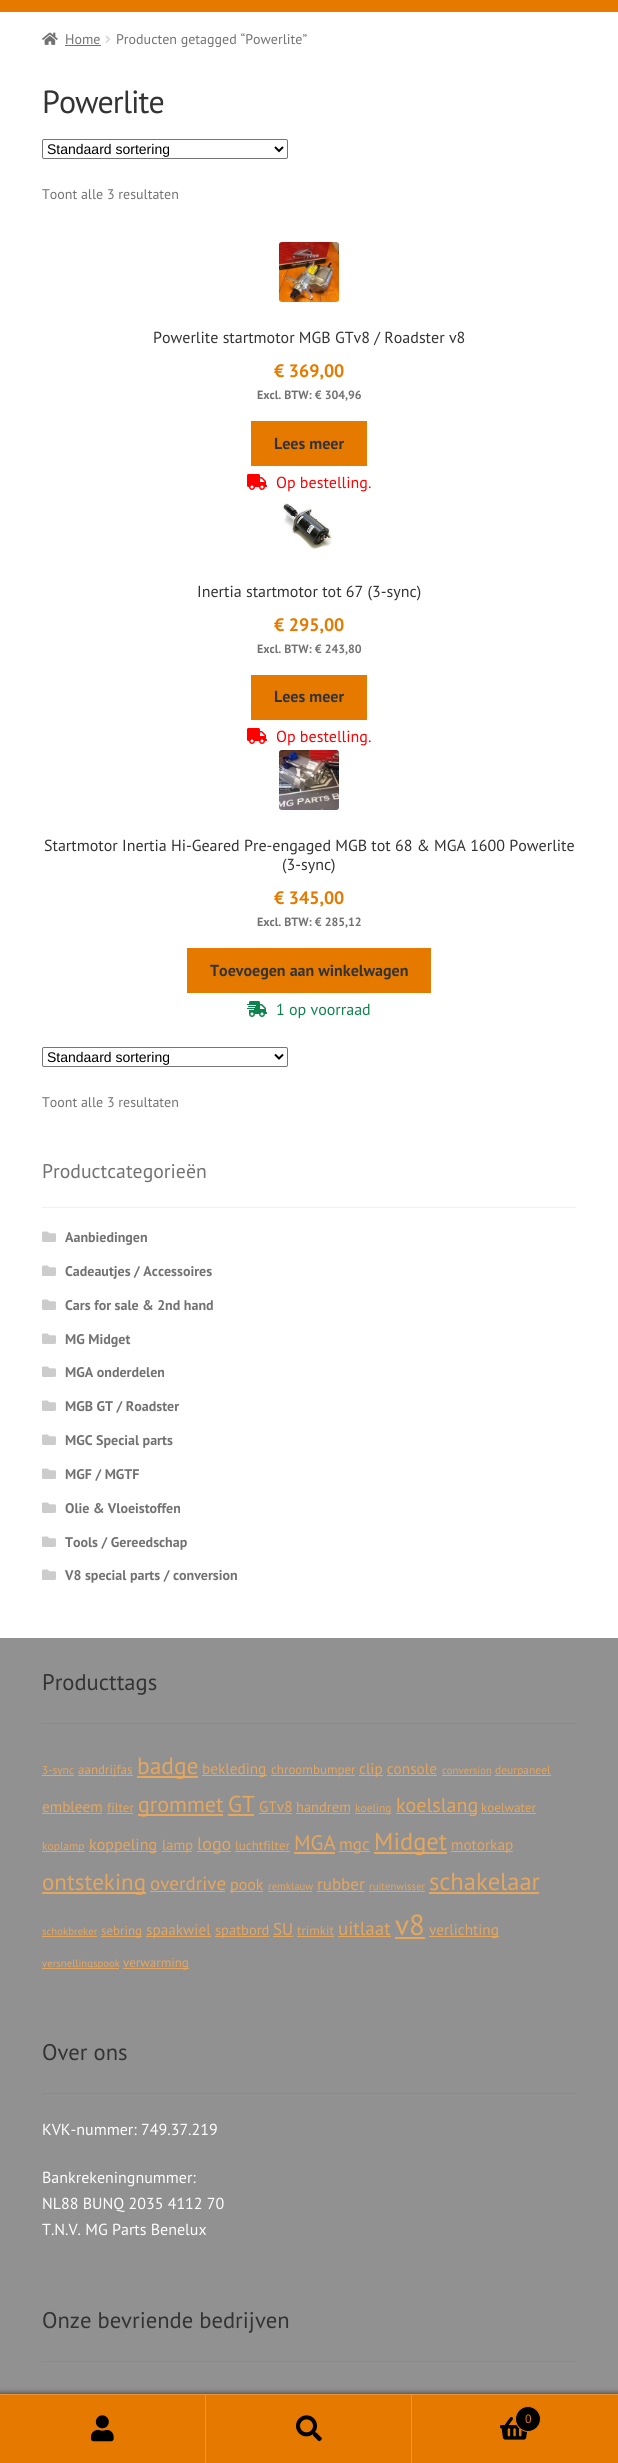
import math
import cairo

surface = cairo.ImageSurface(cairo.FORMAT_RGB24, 618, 2463)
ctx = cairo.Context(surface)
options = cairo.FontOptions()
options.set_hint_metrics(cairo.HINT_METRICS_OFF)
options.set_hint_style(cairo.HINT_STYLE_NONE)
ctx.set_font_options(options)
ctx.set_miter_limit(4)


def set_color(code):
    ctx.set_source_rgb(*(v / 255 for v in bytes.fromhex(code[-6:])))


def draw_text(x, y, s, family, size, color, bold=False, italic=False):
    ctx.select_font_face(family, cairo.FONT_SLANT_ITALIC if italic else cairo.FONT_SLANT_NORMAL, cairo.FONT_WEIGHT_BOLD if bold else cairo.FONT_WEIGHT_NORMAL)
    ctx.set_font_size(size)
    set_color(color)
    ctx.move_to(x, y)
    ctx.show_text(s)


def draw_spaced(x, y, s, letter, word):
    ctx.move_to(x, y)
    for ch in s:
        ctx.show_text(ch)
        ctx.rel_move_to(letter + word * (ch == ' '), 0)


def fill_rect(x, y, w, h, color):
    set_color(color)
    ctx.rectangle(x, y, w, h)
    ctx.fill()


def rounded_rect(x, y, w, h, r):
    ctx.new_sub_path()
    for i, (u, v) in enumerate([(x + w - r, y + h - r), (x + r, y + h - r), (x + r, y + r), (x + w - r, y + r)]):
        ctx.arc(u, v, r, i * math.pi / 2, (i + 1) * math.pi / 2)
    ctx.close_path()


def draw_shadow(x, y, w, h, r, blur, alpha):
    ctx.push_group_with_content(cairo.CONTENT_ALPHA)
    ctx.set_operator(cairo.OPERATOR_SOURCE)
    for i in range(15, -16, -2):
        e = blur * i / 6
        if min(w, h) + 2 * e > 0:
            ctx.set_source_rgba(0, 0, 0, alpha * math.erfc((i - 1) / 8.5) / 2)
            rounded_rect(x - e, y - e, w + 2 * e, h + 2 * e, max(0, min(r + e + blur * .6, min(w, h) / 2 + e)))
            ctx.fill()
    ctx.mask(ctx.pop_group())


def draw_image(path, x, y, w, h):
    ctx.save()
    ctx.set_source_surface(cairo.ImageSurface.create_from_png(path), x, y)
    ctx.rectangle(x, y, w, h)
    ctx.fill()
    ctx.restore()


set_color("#ffffff")
ctx.paint()
fill_rect(0, 0, 618, 12, "#e67a00")
draw_image("assets/img1.png", 42, 32, 16, 13)
draw_text(65, 44, "Home", "PT Sans", 14, "#727272")
fill_rect(65, 45, 36, 1, "#727272")
draw_image("assets/img2.png", 105, 35, 6, 8)
draw_text(116, 44, "Producten getagged “Powerlite”", "PT Sans", 14, "#727272")
ctx.set_font_size(32)
set_color("#333333")
draw_spaced(42, 113, "Powerlite", -1, 0)
rounded_rect(42.5, 139.5, 245, 19, 1.5)
set_color("#767676")
ctx.set_line_width(1)
ctx.stroke()
ctx.new_path()
ctx.move_to(275, 147)
ctx.line_to(279, 151)
ctx.line_to(283, 147)
set_color("#000000")
ctx.set_line_width(2)
ctx.stroke()
draw_text(47, 154, "Standaard sortering", "Liberation Sans", 14, "#000000")
draw_text(42, 199, "Toont alle 3 resultaten", "PT Sans", 14, "#727272")
draw_image("assets/img3.png", 279, 242, 60, 60)
draw_text(153, 343, "Powerlite startmotor MGB GTv8 / Roadster v8", "PT Sans", 16, "#333333")
draw_text(274, 377, "€ 369,00", "PT Sans", 18, "#e67a00", bold=True)
draw_text(257, 399, "Excl. BTW: € 304,96", "PT Sans", 12, "#727272", bold=True)
fill_rect(251, 421, 116, 45, "#e67a00")
draw_text(274, 449, "Lees meer", "PT Sans", 16, "#333333", bold=True)
draw_image("assets/img4.png", 247, 474, 20, 16)
draw_text(276, 488, "Op bestelling.", "PT Sans", 16, "#ff0000")
draw_image("assets/img5.png", 282, 503, 50, 47)
draw_text(197, 597, "Inertia startmotor tot 67 (3-sync)", "PT Sans", 16, "#333333")
draw_text(274, 631, "€ 295,00", "PT Sans", 18, "#e67a00", bold=True)
draw_text(257, 653, "Excl. BTW: € 243,80", "PT Sans", 12, "#727272", bold=True)
fill_rect(251, 675, 116, 45, "#e67a00")
draw_text(274, 702, "Lees meer", "PT Sans", 16, "#333333", bold=True)
draw_image("assets/img4.png", 247, 728, 20, 16)
draw_text(276, 742, "Op bestelling.", "PT Sans", 16, "#ff0000")
draw_image("assets/img6.png", 279, 750, 60, 60)
draw_text(44, 851, "Startmotor Inertia Hi-Geared Pre-engaged MGB tot 68 & MGA 1600 Powerlite", "PT Sans", 16, "#333333")
draw_text(282, 870, "(3-sync)", "PT Sans", 16, "#333333")
draw_text(274, 904, "€ 345,00", "PT Sans", 18, "#e67a00", bold=True)
draw_text(257, 926, "Excl. BTW: € 285,12", "PT Sans", 12, "#727272", bold=True)
fill_rect(187, 948, 244, 45, "#e67a00")
draw_text(210, 976, "Toevoegen aan winkelwagen", "PT Sans", 16, "#333333", bold=True)
draw_image("assets/img7.png", 247, 1001, 20, 16)
draw_text(276, 1015, "1 op voorraad", "PT Sans", 16, "#0f834d")
rounded_rect(42.5, 1047.5, 245, 19, 1.5)
set_color("#767676")
ctx.set_line_width(1)
ctx.stroke()
ctx.new_path()
ctx.move_to(275, 1054.5)
ctx.line_to(279, 1058.5)
ctx.line_to(283, 1054.5)
set_color("#000000")
ctx.set_line_width(2)
ctx.stroke()
draw_text(47, 1062, "Standaard sortering", "Liberation Sans", 14, "#000000")
draw_text(42, 1107, "Toont alle 3 resultaten", "PT Sans", 14, "#727272")
fill_rect(42, 1207, 534, 1, "#f2f2f2")
draw_text(42, 1178, "Productcategorieën", "PT Sans", 19.75, "#727272")
draw_image("assets/img8.png", 42, 1231, 14, 11)
draw_text(65, 1242, "Aanbiedingen", "PT Sans", 14, "#727272", bold=True)
draw_image("assets/img8.png", 42, 1265, 14, 11)
draw_text(65, 1276, "Cadeautjes / Accessoires", "PT Sans", 14, "#727272", bold=True)
draw_image("assets/img8.png", 42, 1299, 14, 11)
draw_text(65, 1310, "Cars for sale & 2nd hand", "PT Sans", 14, "#727272", bold=True)
draw_image("assets/img8.png", 42, 1333, 14, 11)
draw_text(65, 1344, "MG Midget", "PT Sans", 14, "#727272", bold=True)
draw_image("assets/img8.png", 42, 1366, 14, 11)
draw_text(65, 1377, "MGA onderdelen", "PT Sans", 14, "#727272", bold=True)
draw_image("assets/img8.png", 42, 1400, 14, 11)
draw_text(65, 1411, "MGB GT / Roadster", "PT Sans", 14, "#727272", bold=True)
draw_image("assets/img8.png", 42, 1434, 14, 11)
draw_text(65, 1445, "MGC Special parts", "PT Sans", 14, "#727272", bold=True)
draw_image("assets/img8.png", 42, 1468, 14, 11)
draw_text(65, 1479, "MGF / MGTF", "PT Sans", 14, "#727272", bold=True)
draw_image("assets/img8.png", 42, 1502, 14, 11)
draw_text(65, 1513, "Olie & Vloeistoffen", "PT Sans", 14, "#727272", bold=True)
draw_image("assets/img8.png", 42, 1536, 14, 11)
draw_text(65, 1547, "Tools / Gereedschap", "PT Sans", 14, "#727272", bold=True)
draw_image("assets/img8.png", 42, 1569, 14, 11)
draw_text(65, 1580, "V8 special parts / conversion", "PT Sans", 14, "#727272", bold=True)
fill_rect(0, 1638, 618, 756, "#919191")
fill_rect(42, 1723, 534, 1, "#8a8a8a")
draw_text(42, 1690, "Producttags", "PT Sans", 22.6, "#333333")
fill_rect(42, 1775, 32, 1, "#e5a65e")
draw_text(42, 1774, "3-sync", "PT Sans", 11.5, "#e5a65e")
fill_rect(78, 1775, 55, 1, "#e5a65e")
draw_text(78, 1774, "aandrijfas", "PT Sans", 13, "#e5a65e")
fill_rect(137, 1776, 61, 2, "#e5a65e")
draw_text(137, 1774, "badge", "PT Sans", 23.5, "#e5a65e")
fill_rect(202, 1775, 65, 1, "#e5a65e")
draw_text(202, 1774, "bekleding", "PT Sans", 15.25, "#e5a65e")
fill_rect(271, 1775, 84, 1, "#e5a65e")
draw_text(271, 1774, "chroombumper", "PT Sans", 13, "#e5a65e")
fill_rect(359, 1775, 24, 1, "#e5a65e")
draw_text(359, 1774, "clip console", "PT Sans", 15.25, "#e5a65e")
draw_text(442, 1774, "conversion", "PT Sans", 10.75, "#e5a65e")
fill_rect(442, 1775, 49, 1, "#e5a65e")
fill_rect(495, 1775, 56, 1, "#e5a65e")
draw_text(495, 1774, "deurpaneel", "PT Sans", 11.5, "#e5a65e")
fill_rect(387, 1775, 50, 1, "#e5a65e")
draw_text(42, 1812, "embleem", "PT Sans", 15.25, "#e5a65e")
fill_rect(42, 1813, 60, 1, "#e5a65e")
draw_text(107, 1812, "filter", "PT Sans", 13, "#e5a65e")
fill_rect(107, 1813, 26, 1, "#e5a65e")
fill_rect(138, 1814, 85, 2, "#e5a65e")
draw_text(138, 1812, "grommet", "PT Sans", 22, "#e5a65e")
draw_text(228, 1812, "GT", "PT Sans", 23, "#e5a65e")
fill_rect(228, 1814, 26, 2, "#e5a65e")
draw_text(259, 1812, "GTv8", "PT Sans", 15.25, "#e5a65e")
fill_rect(259, 1813, 33, 1, "#e5a65e")
draw_text(296, 1812, "handrem", "PT Sans", 14.5, "#e5a65e")
fill_rect(296, 1813, 54, 1, "#e5a65e")
fill_rect(355, 1813, 36, 1, "#e5a65e")
draw_text(355, 1812, "koeling", "PT Sans", 11.5, "#e5a65e")
fill_rect(396, 1813, 81, 1, "#e5a65e")
draw_text(396, 1812, "koelslang", "PT Sans", 20, "#e5a65e")
draw_text(481, 1812, "koelwater", "PT Sans", 13, "#e5a65e")
fill_rect(481, 1813, 55, 1, "#e5a65e")
fill_rect(42, 1851, 43, 1, "#e5a65e")
draw_text(42, 1850, "koplamp", "PT Sans", 11.5, "#e5a65e")
fill_rect(89, 1851, 68, 1, "#e5a65e")
draw_text(89, 1850, "koppeling", "PT Sans", 16, "#e5a65e")
fill_rect(162, 1851, 30, 1, "#e5a65e")
draw_text(162, 1850, "lamp", "PT Sans", 14.5, "#e5a65e")
fill_rect(197, 1851, 34, 1, "#e5a65e")
draw_text(197, 1850, "logo", "PT Sans", 18, "#e5a65e")
draw_text(235, 1850, "luchtfilter", "PT Sans", 13, "#e5a65e")
fill_rect(235, 1851, 55, 1, "#e5a65e")
draw_text(294, 1850, "MGA", "PT Sans", 21, "#e5a65e")
fill_rect(294, 1852, 41, 2, "#e5a65e")
fill_rect(339, 1851, 31, 1, "#e5a65e")
draw_text(339, 1850, "mgc", "PT Sans", 17, "#e5a65e")
fill_rect(374, 1852, 73, 2, "#e5a65e")
draw_text(374, 1850, "Midget", "PT Sans", 24.5, "#e5a65e")
fill_rect(451, 1851, 62, 1, "#e5a65e")
draw_text(451, 1850, "motorkap", "PT Sans", 15.25, "#e5a65e")
fill_rect(42, 1892, 104, 2, "#e5a65e")
draw_text(42, 1890, "ontsteking", "PT Sans", 23, "#e5a65e")
draw_text(150, 1890, "overdrive", "PT Sans", 19, "#e5a65e")
fill_rect(150, 1891, 75, 1, "#e5a65e")
fill_rect(230, 1891, 33, 1, "#e5a65e")
draw_text(230, 1890, "pook", "PT Sans", 16, "#e5a65e")
draw_text(268, 1890, "remklauw", "PT Sans", 10.75, "#e5a65e")
fill_rect(268, 1891, 44, 1, "#e5a65e")
draw_text(317, 1890, "rubber", "PT Sans", 17, "#e5a65e")
fill_rect(317, 1891, 48, 1, "#e5a65e")
draw_text(369, 1890, "ruitenwisser", "PT Sans", 10.75, "#e5a65e")
fill_rect(369, 1891, 56, 1, "#e5a65e")
draw_text(429, 1890, "schakelaar", "PT Sans", 24.5, "#e5a65e")
fill_rect(429, 1892, 110, 2, "#e5a65e")
draw_text(42, 1935, "schokbreker", "PT Sans", 10.75, "#e5a65e")
fill_rect(42, 1936, 55, 1, "#e5a65e")
fill_rect(101, 1936, 41, 1, "#e5a65e")
draw_text(101, 1935, "sebring", "PT Sans", 13, "#e5a65e")
fill_rect(146, 1936, 65, 1, "#e5a65e")
draw_text(146, 1935, "spaakwiel", "PT Sans", 15.25, "#e5a65e")
fill_rect(215, 1936, 54, 1, "#e5a65e")
draw_text(215, 1935, "spatbord", "PT Sans", 14.5, "#e5a65e")
draw_text(273, 1935, "SU", "PT Sans", 17, "#e5a65e")
fill_rect(273, 1936, 20, 1, "#e5a65e")
draw_text(297, 1935, "trimkit", "PT Sans", 13, "#e5a65e")
fill_rect(297, 1936, 37, 1, "#e5a65e")
draw_text(338, 1935, "uitlaat", "PT Sans", 19, "#e5a65e")
fill_rect(338, 1936, 53, 1, "#e5a65e")
draw_text(395, 1935, "v8", "PT Sans", 29, "#e5a65e")
fill_rect(395, 1937, 30, 2, "#e5a65e")
fill_rect(429, 1936, 70, 1, "#e5a65e")
draw_text(429, 1935, "verlichting", "PT Sans", 15.25, "#e5a65e")
fill_rect(42, 1968, 77, 1, "#e5a65e")
draw_text(42, 1967, "versnellingspook", "PT Sans", 10.75, "#e5a65e")
fill_rect(123, 1968, 66, 1, "#e5a65e")
draw_text(123, 1967, "verwarming", "PT Sans", 13, "#e5a65e")
fill_rect(42, 2093, 534, 1, "#8a8a8a")
draw_text(42, 2060, "Over ons", "PT Sans", 22.6, "#333333")
draw_text(42, 2135, "KVK-nummer: 749.37.219", "PT Sans", 16, "#ffffff")
draw_text(42, 2183, "Bankrekeningnummer:", "PT Sans", 16, "#ffffff")
draw_text(42, 2209, "NL88 BUNQ 2035 4112 70", "PT Sans", 16, "#ffffff")
draw_text(42, 2235, "T.N.V. MG Parts Benelux", "PT Sans", 16, "#ffffff")
fill_rect(42, 2361, 534, 1, "#8a8a8a")
draw_text(42, 2328, "Onze bevriende bedrijven", "PT Sans", 22.6, "#333333")
set_color("#000000")
draw_shadow(0, 2394, 618, 69, 0, 3, 0.7)
fill_rect(0, 2394, 618, 1, "#eb9533")
fill_rect(0, 2395, 205, 68, "#e67a00")
fill_rect(205, 2395, 1, 68, "#eb9533")
draw_image("assets/img9.png", 91, 2415, 23, 27)
fill_rect(206, 2395, 205, 68, "#e67a00")
fill_rect(411, 2395, 1, 68, "#eb9533")
draw_image("assets/img10.png", 296, 2415, 26, 27)
fill_rect(412, 2395, 206, 68, "#e67a00")
draw_image("assets/img11.png", 500, 2417, 28, 23)
set_color("#000000")
ctx.arc(528, 2419, 12.5, 0, 2 * math.pi)
ctx.fill_preserve()
set_color("#e67a00")
ctx.set_line_width(1)
ctx.stroke()
draw_text(525, 2423, "0", "PT Sans", 12, "#e67a00")
surface.write_to_png("output.png")
